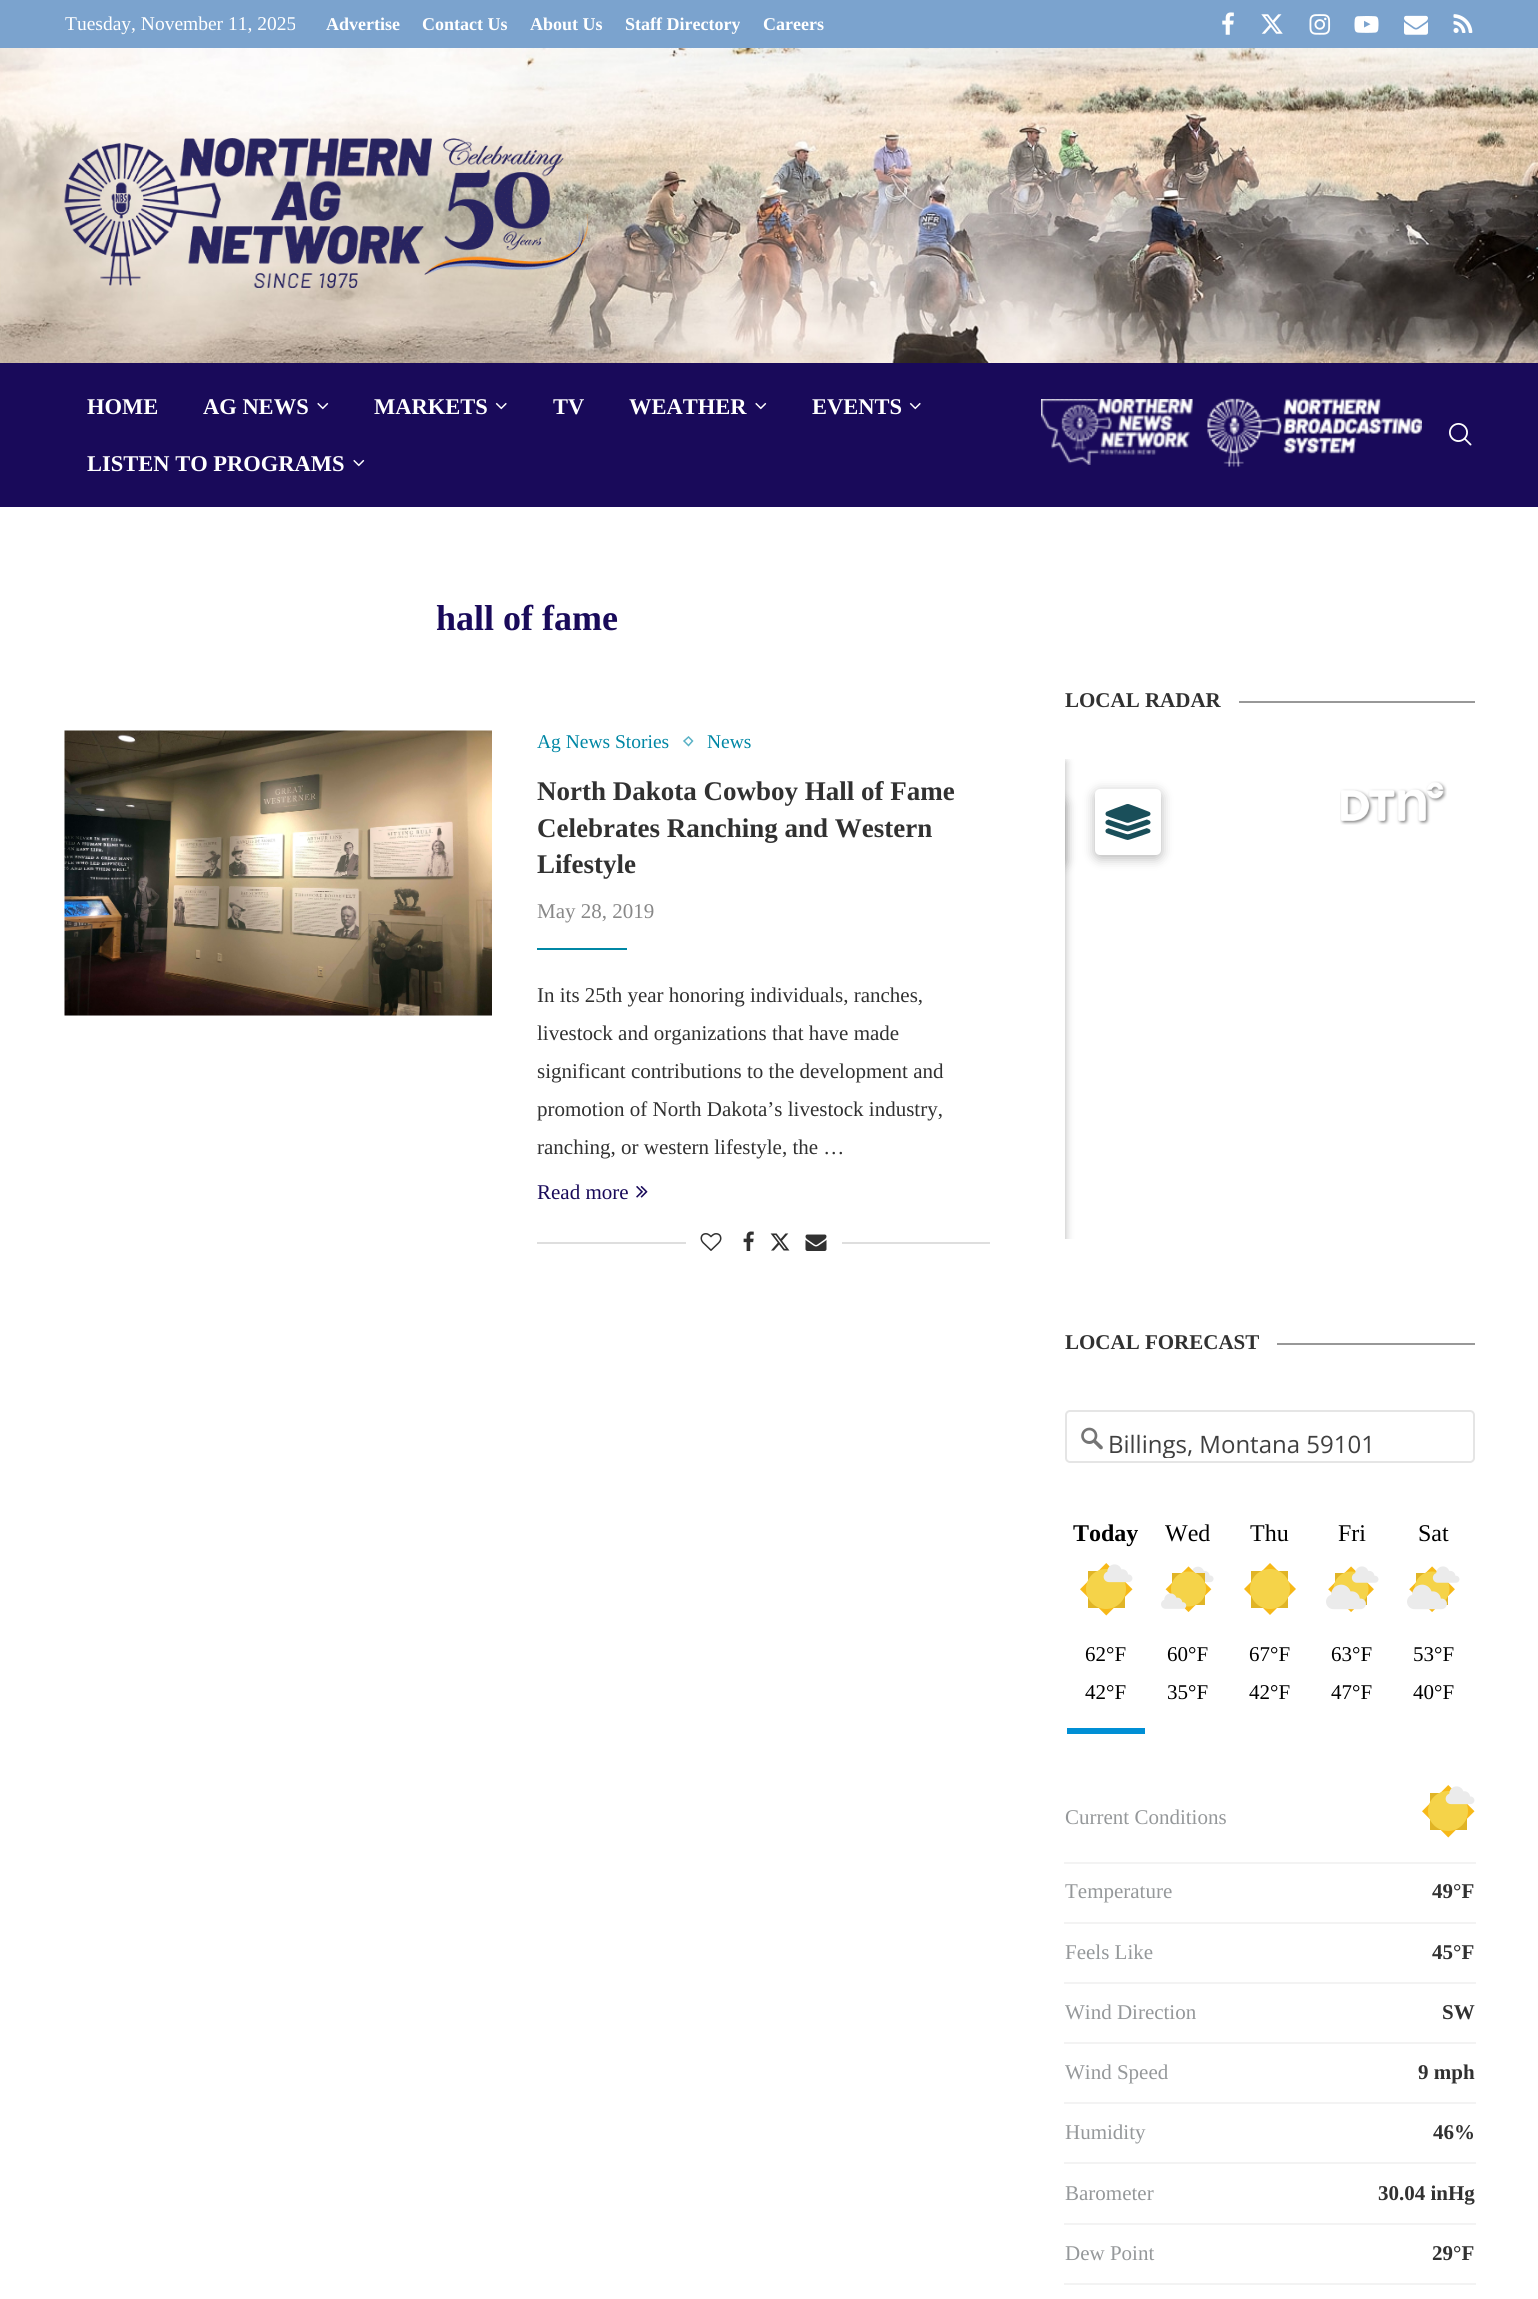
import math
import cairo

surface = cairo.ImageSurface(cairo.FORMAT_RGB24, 1538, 2299)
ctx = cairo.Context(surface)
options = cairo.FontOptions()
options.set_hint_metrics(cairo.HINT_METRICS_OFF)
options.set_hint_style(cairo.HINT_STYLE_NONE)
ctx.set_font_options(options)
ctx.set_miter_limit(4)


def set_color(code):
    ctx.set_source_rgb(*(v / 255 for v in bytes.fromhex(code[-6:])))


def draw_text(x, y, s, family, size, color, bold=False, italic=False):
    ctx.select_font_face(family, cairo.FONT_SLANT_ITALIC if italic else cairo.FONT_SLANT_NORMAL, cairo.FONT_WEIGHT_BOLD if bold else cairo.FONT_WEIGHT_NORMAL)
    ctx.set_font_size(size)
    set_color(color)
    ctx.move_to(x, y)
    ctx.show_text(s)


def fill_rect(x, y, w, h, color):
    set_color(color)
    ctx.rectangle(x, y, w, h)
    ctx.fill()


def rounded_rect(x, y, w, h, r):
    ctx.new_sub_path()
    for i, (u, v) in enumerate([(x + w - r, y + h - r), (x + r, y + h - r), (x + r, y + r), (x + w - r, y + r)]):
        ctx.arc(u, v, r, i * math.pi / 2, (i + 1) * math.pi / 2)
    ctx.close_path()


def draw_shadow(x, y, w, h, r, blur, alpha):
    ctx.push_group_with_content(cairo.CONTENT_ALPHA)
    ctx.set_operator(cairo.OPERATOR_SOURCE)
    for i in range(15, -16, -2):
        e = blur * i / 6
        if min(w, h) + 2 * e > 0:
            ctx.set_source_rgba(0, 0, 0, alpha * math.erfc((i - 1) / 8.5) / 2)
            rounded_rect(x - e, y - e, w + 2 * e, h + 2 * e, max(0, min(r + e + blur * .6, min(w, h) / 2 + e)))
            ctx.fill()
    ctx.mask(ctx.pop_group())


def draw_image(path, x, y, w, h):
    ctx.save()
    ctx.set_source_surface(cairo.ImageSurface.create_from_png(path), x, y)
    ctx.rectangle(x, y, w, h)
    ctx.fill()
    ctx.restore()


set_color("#ffffff")
ctx.paint()
fill_rect(0, 0, 1538, 48, "#7ba3ce")
draw_text(65, 30, "Tuesday, November 11, 2025", "Liberation Serif", 19.5, "#ffffff")
draw_text(326, 30, "Advertise", "Liberation Serif", 18, "#ffffff", bold=True)
draw_text(422, 30, "Contact Us", "Liberation Serif", 18, "#ffffff", bold=True)
draw_text(530, 30, "About Us", "Liberation Serif", 18, "#ffffff", bold=True)
draw_text(625, 30, "Staff Directory", "Liberation Serif", 18, "#ffffff", bold=True)
draw_text(763, 30, "Careers", "Liberation Serif", 18, "#ffffff", bold=True)
draw_image("assets/img1.png", 1222, 12, 12, 23)
draw_image("assets/img2.png", 1261, 14, 22, 20)
draw_image("assets/img3.png", 1309, 14, 22, 21)
draw_image("assets/img4.png", 1354, 16, 25, 17)
draw_image("assets/img5.png", 1404, 15, 24, 20)
draw_image("assets/img6.png", 1453, 14, 20, 19)
draw_image("assets/img7.png", 0, 48, 1538, 315)
draw_image("assets/img8.png", 64, 138, 524, 150)
fill_rect(0, 363, 1538, 144, "#190a5a")
draw_text(87, 414, "HOME", "Liberation Serif", 22.5, "#ffffff", bold=True)
draw_text(203, 414, "AG NEWS", "Liberation Serif", 22.5, "#ffffff", bold=True)
draw_image("assets/img9.png", 317, 402, 12, 8)
draw_text(374, 414, "MARKETS", "Liberation Serif", 22.5, "#ffffff", bold=True)
draw_image("assets/img10.png", 495, 402, 12, 8)
draw_text(553, 414, "TV", "Liberation Serif", 22.5, "#ffffff", bold=True)
draw_text(629, 414, "WEATHER", "Liberation Serif", 22.5, "#ffffff", bold=True)
draw_image("assets/img9.png", 755, 402, 12, 8)
draw_text(812, 414, "EVENTS", "Liberation Serif", 22.5, "#ffffff", bold=True)
draw_image("assets/img10.png", 909, 402, 12, 8)
draw_text(87, 471, "LISTEN TO PROGRAMS", "Liberation Serif", 22.5, "#ffffff", bold=True)
draw_image("assets/img9.png", 353, 459, 12, 8)
draw_image("assets/img11.png", 1041, 399, 152, 66)
draw_image("assets/img12.png", 1207, 398, 215, 69)
draw_image("assets/img13.png", 1449, 423, 23, 23)
draw_text(436, 630, "hall of fame", "Liberation Serif", 36, "#190a5a", bold=True)
fill_rect(65, 1015, 427, 1, "#f5f5f5")
draw_image("assets/img14.png", 64, 730, 428, 286)
draw_text(537, 748, "Ag News Stories", "Liberation Serif", 19.5, "#0087a5")
ctx.new_path()
ctx.move_to(688.5, 737)
ctx.line_to(692.5, 741)
ctx.line_to(688.5, 745.5)
ctx.line_to(684, 741)
ctx.close_path()
set_color("#59b1c5")
ctx.set_line_width(1.5)
ctx.stroke()
draw_text(707, 748, "News", "Liberation Serif", 19.5, "#0087a5")
draw_text(537, 800, "North Dakota Cowboy Hall of Fame", "Liberation Serif", 27, "#313131", bold=True)
draw_text(537, 837, "Celebrates Ranching and Western", "Liberation Serif", 27, "#313131", bold=True)
draw_text(537, 873, "Lifestyle", "Liberation Serif", 27, "#313131", bold=True)
draw_text(537, 918, "May 28, 2019", "Liberation Serif", 21, "#888888")
fill_rect(537, 948, 90, 2, "#0087a5")
draw_text(537, 1002, "In its 25th year honoring individuals, ranches,", "Liberation Serif", 21, "#313131")
draw_text(537, 1040, "livestock and organizations that have made", "Liberation Serif", 21, "#313131")
draw_text(537, 1078, "significant contributions to the development and", "Liberation Serif", 21, "#313131")
draw_text(537, 1116, "promotion of North Dakota’s livestock industry,", "Liberation Serif", 21, "#313131")
draw_text(537, 1154, "ranching, or western lifestyle, the …", "Liberation Serif", 21, "#313131")
draw_text(537, 1199, "Read more", "Liberation Serif", 21, "#190a5a")
draw_image("assets/img15.png", 636, 1186, 12, 12)
fill_rect(537, 1242, 453, 2, "#dedede")
ctx.save()
ctx.rectangle(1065, 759, 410, 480)
ctx.clip()
set_color("#000000")
draw_shadow(653, 762, 412, 480, 0, 4.5, 0.3)
ctx.restore()
fill_rect(686, 1242, 156, 2, "#ffffff")
draw_image("assets/img16.png", 700, 1233, 22, 18)
draw_image("assets/img17.png", 743, 1231, 11, 20)
draw_image("assets/img18.png", 770, 1233, 20, 18)
draw_image("assets/img19.png", 805, 1234, 22, 17)
draw_text(1065, 707, "LOCAL RADAR", "Liberation Serif", 21, "#313131", bold=True)
fill_rect(1239, 701, 236, 2, "#989898")
ctx.save()
ctx.rectangle(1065, 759, 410, 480)
ctx.clip()
set_color("#000000")
draw_shadow(1005, 800, 60, 66, 5, 6, 0.3)
ctx.restore()
set_color("#000000")
draw_shadow(1095, 792, 66, 66, 5, 6, 0.3)
set_color("#ffffff")
rounded_rect(1095, 789, 66, 66, 5)
ctx.fill()
draw_image("assets/img20.png", 1105, 804, 46, 36)
draw_image("assets/img21.png", 1340, 781, 107, 44)
draw_text(1065, 1349, "LOCAL FORECAST", "Liberation Serif", 21, "#313131", bold=True)
fill_rect(1277, 1343, 198, 2, "#989898")
rounded_rect(1066, 1411, 408, 51, 4)
set_color("#e5e5e5")
ctx.set_line_width(2)
ctx.stroke()
draw_image("assets/img22.png", 1081, 1427, 22, 23)
ctx.save()
ctx.rectangle(1109, 1428, 324, 30)
ctx.clip()
draw_text(1108, 1453, "Billings, Montana 59101", "Open Sans", 24, "#404040")
ctx.restore()
draw_text(1073, 1541, "Today", "Liberation Serif", 24, "#000000", bold=True)
draw_image("assets/img23.png", 1080, 1563, 53, 53)
draw_text(1085, 1661, "62°F", "Liberation Serif", 21, "#000000")
draw_text(1085, 1699, "42°F", "Liberation Serif", 21, "#000000")
fill_rect(1067, 1728, 78, 6, "#008fd5")
draw_text(1165, 1541, "Wed", "Liberation Serif", 24, "#000000")
draw_image("assets/img24.png", 1161, 1566, 53, 46)
draw_text(1167, 1661, "60°F", "Liberation Serif", 21, "#000000")
draw_text(1167, 1699, "35°F", "Liberation Serif", 21, "#000000")
draw_text(1250, 1541, "Thu", "Liberation Serif", 24, "#000000")
fill_rect(1251, 1571, 37, 37, "#e0b426")
set_color("#f7b918")
ctx.new_path()
ctx.move_to(1244, 1589)
ctx.line_to(1270, 1563)
ctx.line_to(1296, 1589)
ctx.line_to(1270, 1615)
ctx.close_path()
ctx.fill()
set_color("#f5d349")
ctx.arc(1270, 1589, 20, 0, 2 * math.pi)
ctx.fill()
draw_text(1249, 1661, "67°F", "Liberation Serif", 21, "#000000")
draw_text(1249, 1699, "42°F", "Liberation Serif", 21, "#000000")
draw_text(1338, 1541, "Fri", "Liberation Serif", 24, "#000000")
draw_image("assets/img25.png", 1326, 1566, 53, 46)
draw_text(1331, 1661, "63°F", "Liberation Serif", 21, "#000000")
draw_text(1331, 1699, "47°F", "Liberation Serif", 21, "#000000")
draw_text(1418, 1541, "Sat", "Liberation Serif", 24, "#000000")
draw_image("assets/img25.png", 1407, 1566, 53, 46)
draw_text(1413, 1661, "53°F", "Liberation Serif", 21, "#000000")
draw_text(1413, 1699, "40°F", "Liberation Serif", 21, "#000000")
fill_rect(1064, 1862, 412, 2, "#f3f3f3")
draw_text(1065, 1824, "Current Conditions", "Liberation Serif", 21, "#95989a")
draw_image("assets/img23.png", 1422, 1785, 53, 53)
fill_rect(1064, 1922, 412, 2, "#f3f3f3")
draw_text(1065, 1898, "Temperature", "Liberation Serif", 21, "#95989a")
draw_text(1432, 1898, "49°F", "Liberation Serif", 21, "#313131", bold=True)
fill_rect(1064, 1982, 412, 2, "#f3f3f3")
draw_text(1065, 1959, "Feels Like", "Liberation Serif", 21, "#95989a")
draw_text(1432, 1959, "45°F", "Liberation Serif", 21, "#313131", bold=True)
fill_rect(1064, 2042, 412, 2, "#f3f3f3")
draw_text(1065, 2019, "Wind Direction", "Liberation Serif", 21, "#95989a")
draw_text(1442, 2019, "SW", "Liberation Serif", 21, "#313131", bold=True)
fill_rect(1064, 2102, 412, 2, "#f3f3f3")
draw_text(1065, 2079, "Wind Speed", "Liberation Serif", 21, "#95989a")
draw_text(1418, 2079, "9 mph", "Liberation Serif", 21, "#313131", bold=True)
fill_rect(1064, 2162, 412, 2, "#f3f3f3")
draw_text(1065, 2139, "Humidity", "Liberation Serif", 21, "#95989a")
draw_text(1433, 2139, "46%", "Liberation Serif", 21, "#313131", bold=True)
fill_rect(1064, 2223, 412, 2, "#f3f3f3")
draw_text(1065, 2200, "Barometer", "Liberation Serif", 21, "#95989a")
draw_text(1378, 2200, "30.04 inHg", "Liberation Serif", 21, "#313131", bold=True)
fill_rect(1064, 2283, 412, 2, "#f3f3f3")
draw_text(1065, 2260, "Dew Point", "Liberation Serif", 21, "#95989a")
draw_text(1432, 2260, "29°F", "Liberation Serif", 21, "#313131", bold=True)
surface.write_to_png("output.png")
